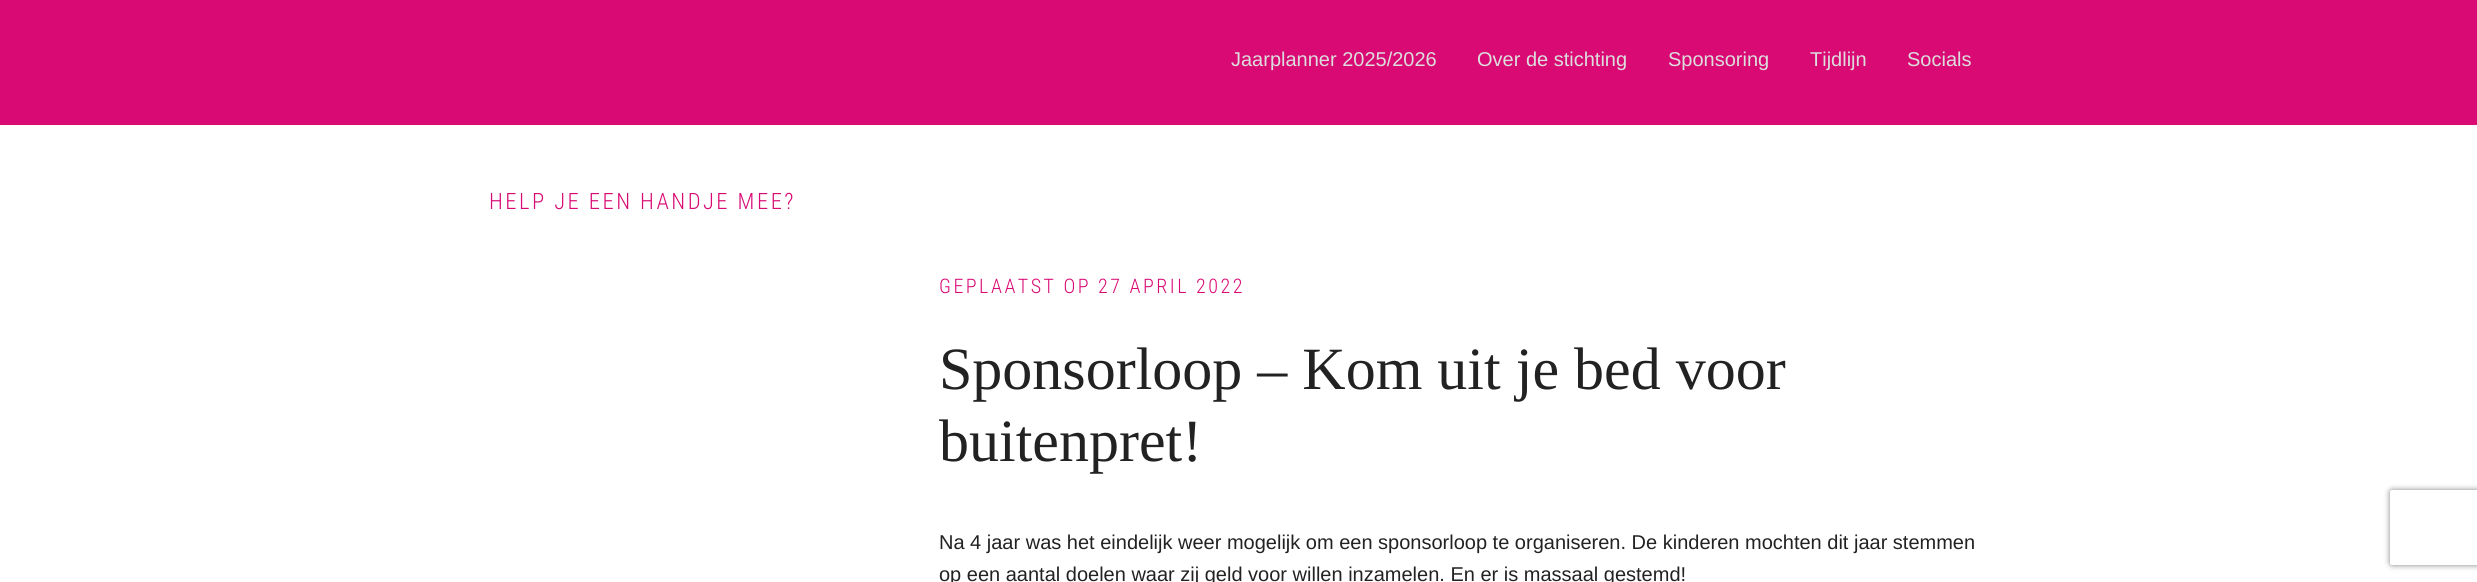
import math
import cairo

surface = cairo.ImageSurface(cairo.FORMAT_RGB24, 2477, 582)
ctx = cairo.Context(surface)
options = cairo.FontOptions()
options.set_hint_metrics(cairo.HINT_METRICS_OFF)
options.set_hint_style(cairo.HINT_STYLE_NONE)
ctx.set_font_options(options)
ctx.set_miter_limit(4)


def set_color(code):
    ctx.set_source_rgb(*(v / 255 for v in bytes.fromhex(code[-6:])))


def draw_text(x, y, s, family, size, color, bold=False, italic=False):
    ctx.select_font_face(family, cairo.FONT_SLANT_ITALIC if italic else cairo.FONT_SLANT_NORMAL, cairo.FONT_WEIGHT_BOLD if bold else cairo.FONT_WEIGHT_NORMAL)
    ctx.set_font_size(size)
    set_color(color)
    ctx.move_to(x, y)
    ctx.show_text(s)


def draw_spaced(x, y, s, letter, word):
    ctx.move_to(x, y)
    for ch in s:
        ctx.show_text(ch)
        ctx.rel_move_to(letter + word * (ch == ' '), 0)


def fill_rect(x, y, w, h, color):
    set_color(color)
    ctx.rectangle(x, y, w, h)
    ctx.fill()


def rounded_rect(x, y, w, h, r):
    ctx.new_sub_path()
    for i, (u, v) in enumerate([(x + w - r, y + h - r), (x + r, y + h - r), (x + r, y + r), (x + w - r, y + r)]):
        ctx.arc(u, v, r, i * math.pi / 2, (i + 1) * math.pi / 2)
    ctx.close_path()


def draw_shadow(x, y, w, h, r, blur, alpha):
    ctx.push_group_with_content(cairo.CONTENT_ALPHA)
    ctx.set_operator(cairo.OPERATOR_SOURCE)
    for i in range(15, -16, -2):
        e = blur * i / 6
        if min(w, h) + 2 * e > 0:
            ctx.set_source_rgba(0, 0, 0, alpha * math.erfc((i - 1) / 8.5) / 2)
            rounded_rect(x - e, y - e, w + 2 * e, h + 2 * e, max(0, min(r + e + blur * .6, min(w, h) / 2 + e)))
            ctx.fill()
    ctx.mask(ctx.pop_group())


set_color("#ffffff")
ctx.paint()
fill_rect(0, 0, 2477, 125, "#d90a74")
draw_text(1231, 66, "Jaarplanner 2025/2026", "Liberation Sans", 20, "#dddddd")
draw_text(1477, 66, "Over de stichting", "Liberation Sans", 20, "#dddddd")
draw_text(1668, 66, "Sponsoring", "Liberation Sans", 20, "#dddddd")
draw_text(1810, 66, "Tijdlijn", "Liberation Sans", 20, "#dddddd")
draw_text(1907, 66, "Socials", "Liberation Sans", 20, "#dddddd")
ctx.select_font_face("Roboto Condensed Light")
ctx.set_font_size(22.5)
set_color("#d90a74")
draw_spaced(489, 209, "HELP JE EEN HANDJE MEE?", 2.5, 0)
ctx.set_font_size(20)
draw_spaced(939, 293, "GEPLAATST OP 27 APRIL 2022", 2.5, 0)
draw_text(939, 389, "Sponsorloop – Kom uit je bed voor", "Liberation Serif", 60, "#222222")
draw_text(939, 461, "buitenpret!", "Liberation Serif", 60, "#222222")
draw_text(939, 549, "Na 4 jaar was het eindelijk weer mogelijk om een sponsorloop te organiseren. De kinderen mochten dit jaar stemmen", "Liberation Sans", 20, "#222222")
draw_text(939, 581, "op een aantal doelen waar zij geld voor willen inzamelen. En er is massaal gestemd!", "Liberation Sans", 20, "#222222")
ctx.save()
ctx.set_fill_rule(cairo.FILL_RULE_EVEN_ODD)
ctx.new_path()
ctx.move_to(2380, 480)
ctx.line_to(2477, 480)
ctx.line_to(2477, 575)
ctx.line_to(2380, 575)
ctx.close_path()
ctx.move_to(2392.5, 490)
ctx.line_to(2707.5, 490)
ctx.curve_to(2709, 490, 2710, 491, 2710, 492.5)
ctx.line_to(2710, 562.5)
ctx.curve_to(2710, 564, 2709, 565, 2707.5, 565)
ctx.line_to(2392.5, 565)
ctx.curve_to(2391, 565, 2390, 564, 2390, 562.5)
ctx.line_to(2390, 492.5)
ctx.curve_to(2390, 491, 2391, 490, 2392.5, 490)
ctx.close_path()
ctx.clip()
set_color("#808080")
draw_shadow(2390, 490, 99, 75, 2.5, 3, 1)
ctx.restore()
surface.write_to_png("output.png")
